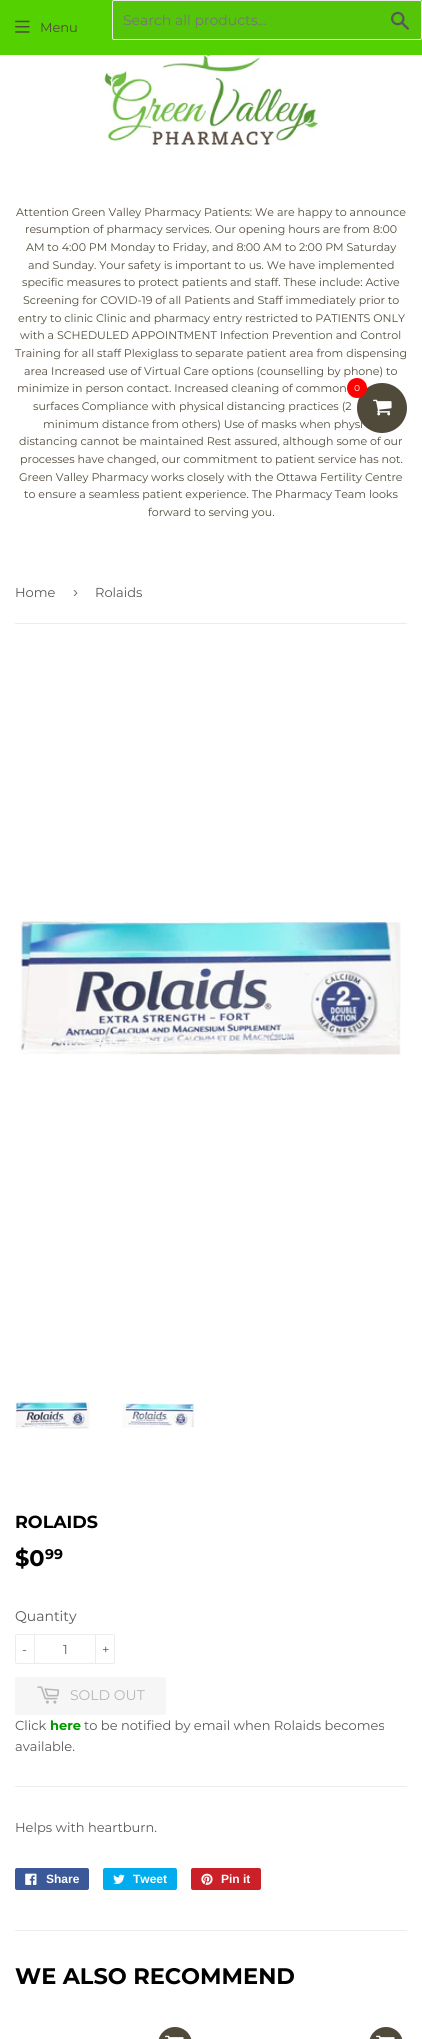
import math
import cairo

surface = cairo.ImageSurface(cairo.FORMAT_RGB24, 422, 2039)
ctx = cairo.Context(surface)
options = cairo.FontOptions()
options.set_hint_metrics(cairo.HINT_METRICS_OFF)
options.set_hint_style(cairo.HINT_STYLE_NONE)
ctx.set_font_options(options)
ctx.set_miter_limit(4)


def set_color(code):
    ctx.set_source_rgb(*(v / 255 for v in bytes.fromhex(code[-6:])))


def draw_text(x, y, s, family, size, color, bold=False, italic=False):
    ctx.select_font_face(family, cairo.FONT_SLANT_ITALIC if italic else cairo.FONT_SLANT_NORMAL, cairo.FONT_WEIGHT_BOLD if bold else cairo.FONT_WEIGHT_NORMAL)
    ctx.set_font_size(size)
    set_color(color)
    ctx.move_to(x, y)
    ctx.show_text(s)


def fill_rect(x, y, w, h, color):
    set_color(color)
    ctx.rectangle(x, y, w, h)
    ctx.fill()


def rounded_rect(x, y, w, h, r):
    ctx.new_sub_path()
    for i, (u, v) in enumerate([(x + w - r, y + h - r), (x + r, y + h - r), (x + r, y + r), (x + w - r, y + r)]):
        ctx.arc(u, v, r, i * math.pi / 2, (i + 1) * math.pi / 2)
    ctx.close_path()


def draw_image(path, x, y, w, h):
    ctx.save()
    ctx.set_source_surface(cairo.ImageSurface.create_from_png(path), x, y)
    ctx.rectangle(x, y, w, h)
    ctx.fill()
    ctx.restore()


set_color("#ffffff")
ctx.paint()
fill_rect(0, 0, 422, 55, "#54d100")
draw_image("assets/img1.png", 15, 20, 15, 13)
draw_text(40, 32, "Menu", "Montserrat", 13, "#504a3b")
set_color("#54c509")
rounded_rect(112.5, 0.5, 309, 39, 1.5)
ctx.fill_preserve()
set_color("#ececec")
ctx.set_line_width(1)
ctx.stroke()
draw_text(123, 25, "Search all products...", "Montserrat", 14, "#767676")
draw_image("assets/img2.png", 391, 11, 18, 19)
draw_image("assets/img3.png", 101, 55, 219, 92)
draw_text(16, 216, "Attention Green Valley Pharmacy Patients: We are happy to announce", "Montserrat", 11.05, "#504a3b")
draw_text(25, 233, "resumption of pharmacy services. Our opening hours are from 8:00", "Montserrat", 11.05, "#504a3b")
draw_text(26, 251, "AM to 4:00 PM Monday to Friday, and 8:00 AM to 2:00 PM Saturday", "Montserrat", 11.05, "#504a3b")
draw_text(28, 269, "and Sunday. Your safety is important to us. We have implemented", "Montserrat", 11.05, "#504a3b")
draw_text(22, 286, "specific measures to protect patients and staff. These include: Active", "Montserrat", 11.05, "#504a3b")
draw_text(23, 304, "Screening for COVID-19 of all Patients and Staff immediately prior to", "Montserrat", 11.05, "#504a3b")
draw_text(18, 322, "entry to clinic Clinic and pharmacy entry restricted to PATIENTS ONLY", "Montserrat", 11.05, "#504a3b")
draw_text(20, 339, "with a SCHEDULED APPOINTMENT Infection Prevention and Control", "Montserrat", 11.05, "#504a3b")
draw_text(15, 357, "Training for all staff Plexiglass to separate patient area from dispensing", "Montserrat", 11.05, "#504a3b")
draw_text(24, 375, "area Increased use of Virtual Care options (counselling by phone) to", "Montserrat", 11.05, "#504a3b")
draw_text(17, 392, "minimize in person contact. Increased cleaning of common", "Montserrat", 11.05, "#504a3b")
draw_text(33, 410, "surfaces Compliance with physical distancing practices (2", "Montserrat", 11.05, "#504a3b")
draw_text(43, 428, "minimum distance from others) Use of masks when physi", "Montserrat", 11.05, "#504a3b")
draw_text(19, 445, "distancing cannot be maintained Rest assured, although some of our", "Montserrat", 11.05, "#504a3b")
draw_text(20, 463, "processes have changed, our commitment to patient service has not.", "Montserrat", 11.05, "#504a3b")
draw_text(19, 481, "Green Valley Pharmacy works closely with the Ottawa Fertility Centre", "Montserrat", 11.05, "#504a3b")
draw_text(24, 498, "to ensure a seamless patient experience. The Pharmacy Team looks", "Montserrat", 11.05, "#504a3b")
draw_text(148, 516, "forward to serving you.", "Montserrat", 11.05, "#504a3b")
ctx.new_path()
ctx.arc(382, 408, 25, 0, 2 * math.pi)
ctx.fill()
set_color("#ff0000")
ctx.arc(357, 388, 10, 0, 2 * math.pi)
ctx.fill()
draw_text(354, 391, "0", "Raleway Thin", 10, "#ffffff")
draw_image("assets/img4.png", 373, 399, 19, 17)
fill_rect(15, 623, 392, 1, "#ececec")
draw_text(15, 597, "Home", "Montserrat", 13, "#585858")
draw_text(73, 597, "›", "Liberation Sans", 15, "#767676")
draw_text(95, 597, "Rolaids", "Montserrat", 13, "#585858")
draw_image("assets/img5.png", 15, 920, 386, 135)
draw_image("assets/img6.png", 15, 1401, 75, 28)
draw_image("assets/img7.png", 121, 1403, 74, 25)
draw_text(15, 1528, "ROLAIDS", "Montserrat", 17.5, "#000000", bold=True)
draw_text(15, 1566, "$0", "Montserrat", 22.5, "#000000", bold=True)
draw_text(45, 1559, "99", "Montserrat", 14, "#000000", bold=True)
draw_text(15, 1621, "Quantity", "Montserrat", 14, "#585858")
rounded_rect(15.5, 1634.5, 99, 29, 1.5)
set_color("#ececec")
ctx.stroke()
fill_rect(34, 1634, 1, 30, "#ececec")
draw_text(22, 1654, "-", "Montserrat", 13, "#585858")
draw_text(63, 1654, "1", "Montserrat", 13, "#585858")
fill_rect(95, 1634, 1, 30, "#ececec")
draw_text(102, 1654, "+", "Montserrat", 13, "#585858")
set_color("#f6f6f6")
rounded_rect(15, 1677, 151, 38, 2)
ctx.fill()
draw_image("assets/img8.png", 37, 1686, 23, 18)
draw_text(70, 1700, "SOLD OUT", "Montserrat", 14, "#b6b6b6")
draw_text(15, 1730, "Click", "Montserrat", 13, "#585858")
draw_text(50, 1730, "here", "Montserrat", 13, "#009900", bold=True)
draw_text(84, 1730, "to be notified by email when Rolaids becomes", "Montserrat", 13, "#585858")
draw_text(15, 1751, "available.", "Montserrat", 13, "#585858")
fill_rect(15, 1786, 392, 1, "#ececec")
draw_text(15, 1832, "Helps with heartburn.", "Montserrat", 13, "#585858")
set_color("#3b5998")
rounded_rect(15, 1868, 74, 22, 2)
ctx.fill()
draw_image("assets/img9.png", 25, 1873, 12, 12)
draw_text(46, 1883, "Share", "Liberation Sans", 12, "#ffffff", bold=True)
set_color("#00aced")
rounded_rect(103, 1868, 74, 22, 2)
ctx.fill()
draw_image("assets/img10.png", 113, 1874, 12, 10)
draw_text(133, 1883, "Tweet", "Liberation Sans", 12, "#ffffff", bold=True)
set_color("#cb2027")
rounded_rect(191, 1868, 70, 22, 2)
ctx.fill()
draw_image("assets/img11.png", 201, 1873, 12, 12)
draw_text(221, 1883, "Pin it", "Liberation Sans", 12, "#ffffff", bold=True)
fill_rect(15, 1930, 392, 1, "#ececec")
draw_text(15, 1984, "WE ALSO RECOMMEND", "Montserrat", 22.5, "#000000", bold=True)
set_color("#504a3b")
rounded_rect(158, 2027, 34, 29, 17)
ctx.fill()
draw_image("assets/img12.png", 165, 2035, 19, 4)
rounded_rect(369, 2027, 34, 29, 17)
ctx.fill()
draw_image("assets/img12.png", 376, 2035, 19, 4)
surface.write_to_png("output.png")
